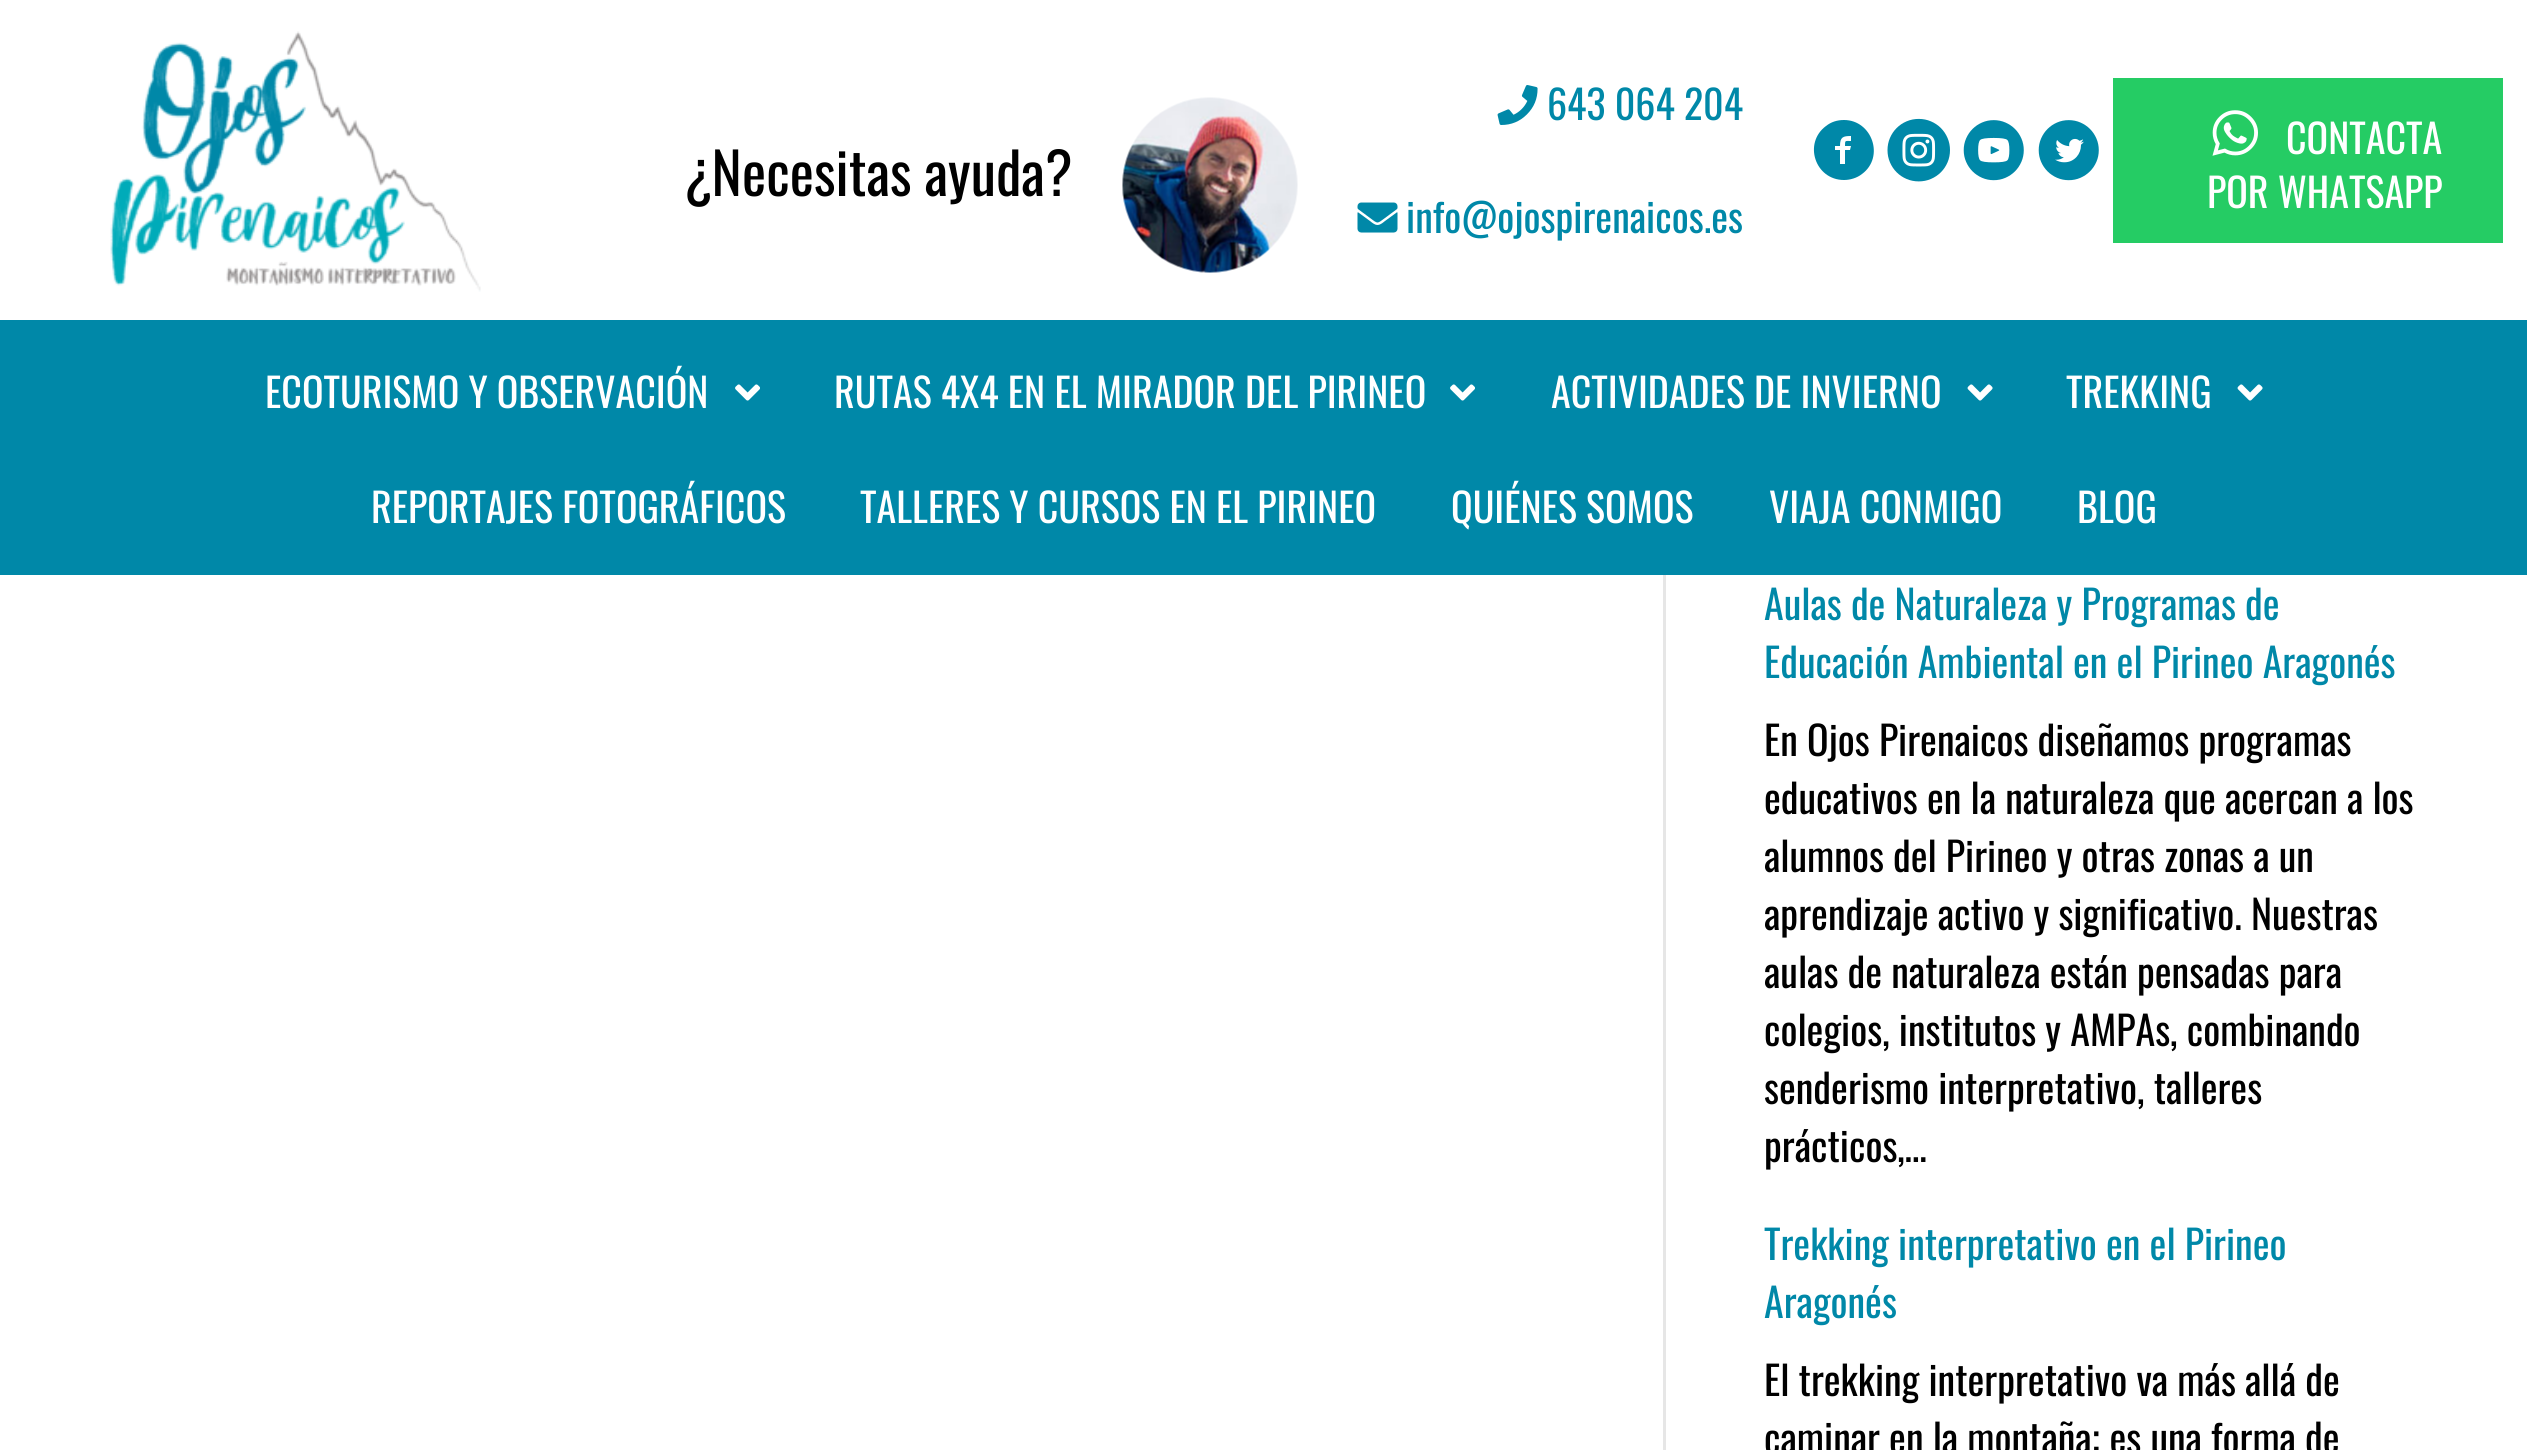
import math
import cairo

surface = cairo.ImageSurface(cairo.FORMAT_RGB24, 2527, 1450)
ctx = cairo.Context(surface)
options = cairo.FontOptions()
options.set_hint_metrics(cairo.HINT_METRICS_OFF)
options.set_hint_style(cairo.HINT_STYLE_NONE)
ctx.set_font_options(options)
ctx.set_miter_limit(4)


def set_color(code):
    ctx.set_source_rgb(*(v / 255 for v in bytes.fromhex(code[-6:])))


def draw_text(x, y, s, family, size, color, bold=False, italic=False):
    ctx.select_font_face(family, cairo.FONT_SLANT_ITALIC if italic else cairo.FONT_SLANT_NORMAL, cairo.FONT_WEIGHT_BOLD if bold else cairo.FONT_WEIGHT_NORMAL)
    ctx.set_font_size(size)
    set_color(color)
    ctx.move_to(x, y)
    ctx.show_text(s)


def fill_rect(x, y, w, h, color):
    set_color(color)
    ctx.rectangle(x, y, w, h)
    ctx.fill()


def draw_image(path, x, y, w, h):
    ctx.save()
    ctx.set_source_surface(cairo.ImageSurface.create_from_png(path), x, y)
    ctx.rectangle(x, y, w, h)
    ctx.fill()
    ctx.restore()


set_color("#ffffff")
ctx.paint()
draw_image("assets/img1.png", 110, 31, 371, 261)
draw_text(684, 196, "¿Necesitas ayuda?", "Oswald", 57.5, "#000000")
draw_image("assets/img2.png", 1122, 97, 176, 176)
draw_image("assets/img3.png", 1497, 85, 41, 40)
draw_text(1547, 120, "643 064 204", "Oswald", 40, "#0088a8")
draw_image("assets/img4.png", 1357, 202, 41, 31)
draw_text(1406, 233, "info@ojospirenaicos.es", "Oswald", 40, "#0088a8")
ctx.new_path()
ctx.move_to(1844, 120)
ctx.curve_to(1837, 120, 1831, 122, 1826, 126)
ctx.curve_to(1803, 143, 1815, 180, 1844, 180)
ctx.curve_to(1850, 180, 1857, 178, 1862, 174)
ctx.curve_to(1885, 157, 1872, 120, 1844, 120)
ctx.close_path()
ctx.move_to(1851, 141)
ctx.curve_to(1845, 141, 1845, 140, 1845, 146)
ctx.line_to(1851, 146)
ctx.line_to(1850, 150)
ctx.line_to(1845, 150)
ctx.line_to(1845, 164)
ctx.line_to(1840, 164)
ctx.line_to(1840, 150)
ctx.line_to(1835, 150)
ctx.line_to(1835, 146)
ctx.line_to(1840, 146)
ctx.curve_to(1840, 137, 1843, 136, 1851, 136)
ctx.close_path()
ctx.fill()
draw_image("assets/img5.png", 1887, 118, 63, 64)
draw_image("assets/img6.png", 1963, 120, 61, 61)
draw_image("assets/img7.png", 2038, 120, 61, 61)
fill_rect(2113, 78, 390, 165, "#25cc64")
draw_image("assets/img8.png", 2212, 110, 46, 46)
draw_text(2286, 154, "CONTACTA", "Oswald", 40, "#ffffff")
draw_text(2207, 208, "POR WHATSAPP", "Oswald", 40, "#ffffff")
fill_rect(0, 320, 2527, 255, "#0088a8")
draw_text(265, 408, "ECOTURISMO Y OBSERVACIÓN", "Oswald", 40, "#ffffff")
draw_image("assets/img9.png", 735, 384, 25, 17)
draw_text(834, 408, "RUTAS 4X4 EN EL MIRADOR DEL PIRINEO", "Oswald", 40, "#ffffff")
draw_image("assets/img9.png", 1450, 384, 25, 17)
draw_text(1551, 408, "ACTIVIDADES DE INVIERNO", "Oswald", 40, "#ffffff")
draw_image("assets/img10.png", 1967, 384, 26, 17)
draw_text(2066, 408, "TREKKING", "Oswald", 40, "#ffffff")
draw_image("assets/img10.png", 2237, 384, 26, 17)
draw_text(371, 523, "REPORTAJES FOTOGRÁFICOS", "Oswald", 40, "#ffffff")
draw_text(860, 523, "TALLERES Y CURSOS EN EL PIRINEO", "Oswald", 40, "#ffffff")
draw_text(1451, 523, "QUIÉNES SOMOS", "Oswald", 40, "#ffffff")
draw_text(1769, 523, "VIAJA CONMIGO", "Oswald", 40, "#ffffff")
draw_text(2077, 523, "BLOG", "Oswald", 40, "#ffffff")
fill_rect(1663, 575, 3, 875, "#e6e6e6")
draw_text(1764, 620, "Aulas de Naturaleza y Programas de", "Oswald", 40, "#0088a8")
draw_text(1764, 678, "Educación Ambiental en el Pirineo Aragonés", "Oswald", 40, "#0088a8")
draw_text(1764, 756, "En Ojos Pirenaicos diseñamos programas", "Oswald", 40, "#000000")
draw_text(1764, 814, "educativos en la naturaleza que acercan a los", "Oswald", 40, "#000000")
draw_text(1764, 872, "alumnos del Pirineo y otras zonas a un", "Oswald", 40, "#000000")
draw_text(1764, 930, "aprendizaje activo y significativo. Nuestras", "Oswald", 40, "#000000")
draw_text(1764, 988, "aulas de naturaleza están pensadas para", "Oswald", 40, "#000000")
draw_text(1764, 1046, "colegios, institutos y AMPAs, combinando", "Oswald", 40, "#000000")
draw_text(1764, 1104, "senderismo interpretativo, talleres", "Oswald", 40, "#000000")
draw_text(1764, 1162, "prácticos,…", "Oswald", 40, "#000000")
draw_text(1764, 1260, "Trekking interpretativo en el Pirineo", "Oswald", 40, "#0088a8")
draw_text(1764, 1318, "Aragonés", "Oswald", 40, "#0088a8")
draw_text(1764, 1396, "El trekking interpretativo va más allá de", "Oswald", 40, "#000000")
draw_text(1764, 1454, "caminar en la montaña; es una forma de", "Oswald", 40, "#000000")
surface.write_to_png("output.png")
